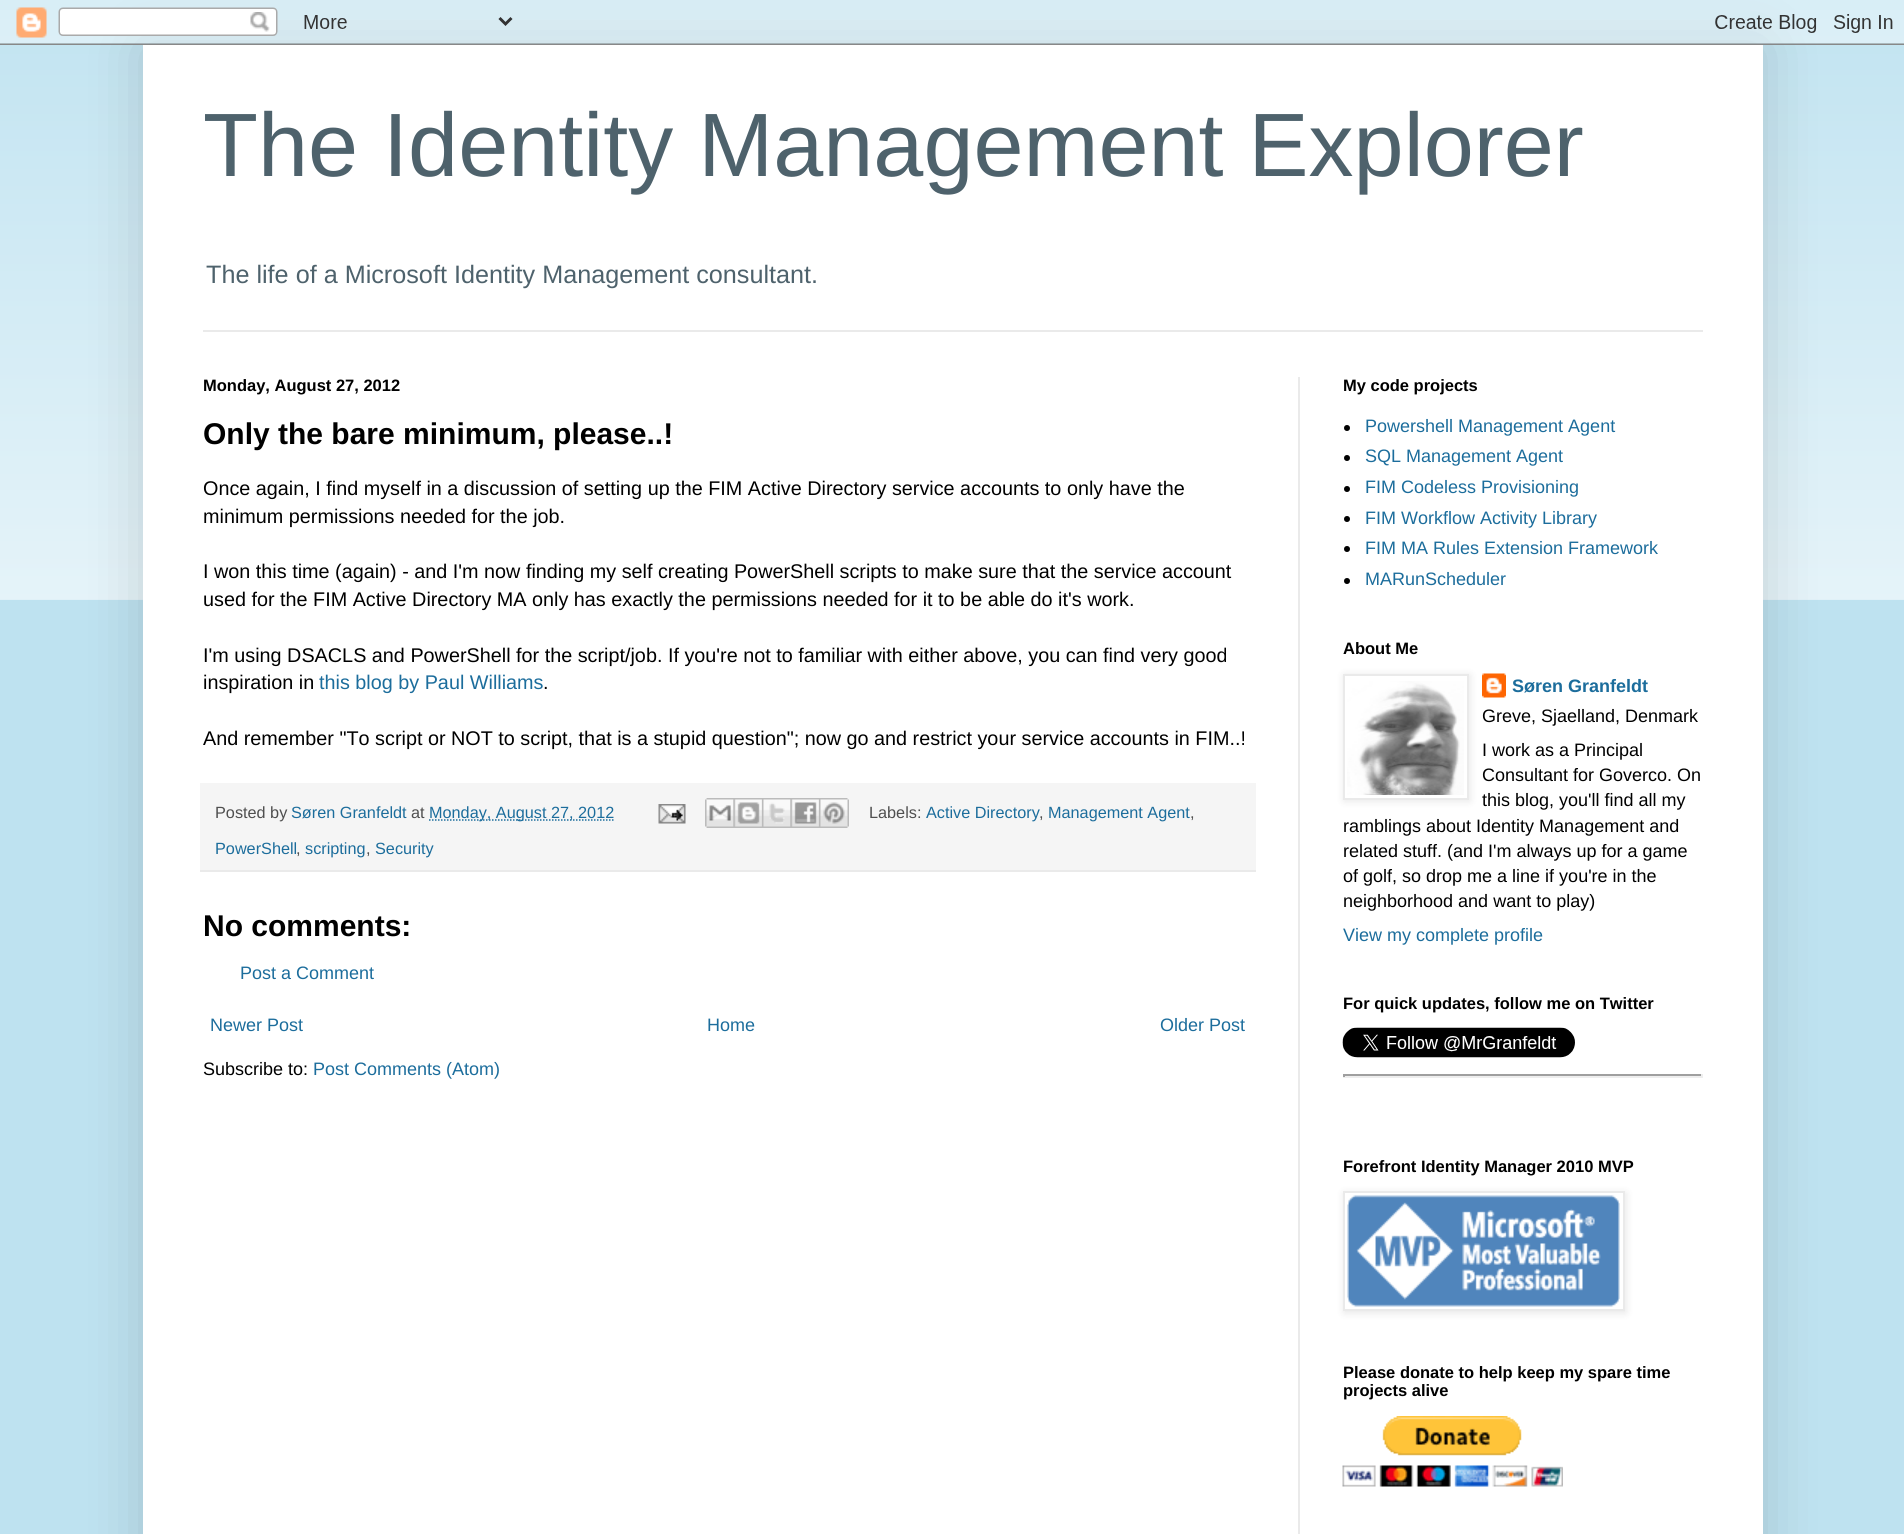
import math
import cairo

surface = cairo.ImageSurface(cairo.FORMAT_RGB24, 1904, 1534)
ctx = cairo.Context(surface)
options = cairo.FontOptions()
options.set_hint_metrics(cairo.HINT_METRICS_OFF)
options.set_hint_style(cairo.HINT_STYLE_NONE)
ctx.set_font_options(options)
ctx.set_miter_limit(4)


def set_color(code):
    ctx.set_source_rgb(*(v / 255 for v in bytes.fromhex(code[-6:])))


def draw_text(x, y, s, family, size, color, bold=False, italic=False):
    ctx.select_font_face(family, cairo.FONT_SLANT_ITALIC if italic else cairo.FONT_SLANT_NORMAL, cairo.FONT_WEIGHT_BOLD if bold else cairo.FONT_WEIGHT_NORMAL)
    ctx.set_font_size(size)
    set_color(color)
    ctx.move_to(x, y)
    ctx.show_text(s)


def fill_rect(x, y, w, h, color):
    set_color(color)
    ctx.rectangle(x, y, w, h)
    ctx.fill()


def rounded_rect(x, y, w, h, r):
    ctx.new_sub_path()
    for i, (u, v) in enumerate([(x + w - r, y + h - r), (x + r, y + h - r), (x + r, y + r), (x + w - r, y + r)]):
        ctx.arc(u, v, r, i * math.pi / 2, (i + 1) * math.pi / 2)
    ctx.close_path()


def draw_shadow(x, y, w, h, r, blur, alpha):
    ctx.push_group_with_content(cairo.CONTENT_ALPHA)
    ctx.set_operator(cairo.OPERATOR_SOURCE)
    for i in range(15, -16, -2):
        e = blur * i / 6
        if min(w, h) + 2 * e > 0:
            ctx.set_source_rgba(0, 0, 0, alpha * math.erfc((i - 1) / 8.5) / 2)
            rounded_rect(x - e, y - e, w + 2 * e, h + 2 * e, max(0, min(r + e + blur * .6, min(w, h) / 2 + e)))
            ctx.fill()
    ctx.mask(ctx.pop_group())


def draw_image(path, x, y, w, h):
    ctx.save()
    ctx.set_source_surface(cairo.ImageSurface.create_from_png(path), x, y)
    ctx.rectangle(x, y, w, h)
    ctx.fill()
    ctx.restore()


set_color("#bee2f0")
ctx.paint()
draw_image("assets/img2.png", 0, 10, 1904, 590)
set_color("#000000")
draw_shadow(143, 45, 1620, 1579, 0, 30, 0.15)
draw_image("assets/img1.png", 0, 0, 1904, 45)
fill_rect(143, 45, 1620, 1489, "#ffffff")
draw_text(203, 176, "The Identity Management Explorer", "Liberation Sans", 90, "#4e626c")
draw_text(206, 283, "The life of a Microsoft Identity Management consultant.", "Liberation Sans", 25.2, "#4e626c")
fill_rect(203, 330, 1500, 2, "#eaeaea")
fill_rect(1298, 377, 2, 1157, "#eaeaea")
draw_text(203, 391, "Monday, August 27, 2012", "Liberation Sans", 16.5, "#000000", bold=True)
draw_text(203, 444, "Only the bare minimum, please..!", "Liberation Sans", 30, "#000000", bold=True)
draw_text(203, 495, "Once again, I find myself in a discussion of setting up the FIM Active Directory service accounts to only have the", "Liberation Sans", 19.8, "#000000")
draw_text(203, 523, "minimum permissions needed for the job.", "Liberation Sans", 19.8, "#000000")
draw_text(203, 578, "I won this time (again) - and I'm now finding my self creating PowerShell scripts to make sure that the service account", "Liberation Sans", 19.8, "#000000")
draw_text(203, 606, "used for the FIM Active Directory MA only has exactly the permissions needed for it to be able do it's work.", "Liberation Sans", 19.8, "#000000")
draw_text(203, 662, "I'm using DSACLS and PowerShell for the script/job. If you're not to familiar with either above, you can find very good", "Liberation Sans", 19.8, "#000000")
draw_text(203, 689, "inspiration in", "Liberation Sans", 19.8, "#000000")
draw_text(319, 689, "this blog by Paul Williams", "Liberation Sans", 19.8, "#1c6d9c")
draw_text(543, 689, ".", "Liberation Sans", 19.8, "#000000")
draw_text(203, 745, "And remember \"To script or NOT to script, that is a stupid question\"; now go and restrict your service accounts in FIM..!", "Liberation Sans", 19.8, "#000000")
fill_rect(200, 783, 1056, 87, "#f5f5f5")
fill_rect(200, 870, 1056, 2, "#eaeaea")
draw_text(215, 818, "Posted by", "Liberation Sans", 16.25, "#4f4f4f")
draw_text(291, 818, "Søren Granfeldt", "Liberation Sans", 16.25, "#1c6d9c")
draw_text(411, 818, "at", "Liberation Sans", 16.25, "#4f4f4f")
ctx.new_path()
ctx.move_to(429, 820)
ctx.line_to(613.5, 820)
set_color("#1c6d9c")
ctx.set_line_width(1.5)
ctx.set_dash([1.5, 1.5])
ctx.stroke()
draw_text(429, 818, "Monday, August 27, 2012", "Liberation Sans", 16.25, "#1c6d9c")
draw_image("assets/img3.png", 658, 804, 28, 20)
draw_image("assets/img4.png", 705, 798, 29, 30)
draw_image("assets/img5.png", 733, 798, 29, 30)
draw_image("assets/img6.png", 762, 798, 29, 30)
draw_image("assets/img7.png", 790, 798, 29, 30)
draw_image("assets/img8.png", 819, 798, 30, 30)
draw_text(869, 818, "Labels:", "Liberation Sans", 16.25, "#4f4f4f")
draw_text(926, 818, "Active Directory", "Liberation Sans", 16.25, "#1c6d9c")
draw_text(1039, 818, ",", "Liberation Sans", 16.25, "#4f4f4f")
draw_text(1048, 818, "Management Agent", "Liberation Sans", 16.25, "#1c6d9c")
draw_text(1190, 818, ",", "Liberation Sans", 16.25, "#4f4f4f")
draw_text(215, 854, "PowerShell", "Liberation Sans", 16.25, "#1c6d9c")
draw_text(296, 854, ",", "Liberation Sans", 16.25, "#4f4f4f")
draw_text(305, 854, "scripting", "Liberation Sans", 16.25, "#1c6d9c")
draw_text(366, 854, ",", "Liberation Sans", 16.25, "#4f4f4f")
draw_text(375, 854, "Security", "Liberation Sans", 16.25, "#1c6d9c")
draw_text(203, 936, "No comments:", "Liberation Sans", 30, "#000000", bold=True)
draw_text(240, 979, "Post a Comment", "Liberation Sans", 18, "#1c6d9c")
draw_text(210, 1031, "Newer Post", "Liberation Sans", 18, "#1c6d9c")
draw_text(707, 1031, "Home", "Liberation Sans", 18, "#1c6d9c")
draw_text(1160, 1031, "Older Post", "Liberation Sans", 18, "#1c6d9c")
draw_text(203, 1075, "Subscribe to:", "Liberation Sans", 18, "#000000")
draw_text(313, 1075, "Post Comments (Atom)", "Liberation Sans", 18, "#1c6d9c")
draw_text(1343, 391, "My code projects", "Liberation Sans", 16.5, "#000000", bold=True)
ctx.new_path()
ctx.arc(1347, 428, 3, 0, 2 * math.pi)
ctx.fill()
draw_text(1365, 432, "Powershell Management Agent", "Liberation Sans", 18, "#1c6d9c")
set_color("#000000")
ctx.new_path()
ctx.arc(1347, 458, 3, 0, 2 * math.pi)
ctx.fill()
draw_text(1365, 462, "SQL Management Agent", "Liberation Sans", 18, "#1c6d9c")
set_color("#000000")
ctx.new_path()
ctx.arc(1347, 489, 3, 0, 2 * math.pi)
ctx.fill()
draw_text(1365, 493, "FIM Codeless Provisioning", "Liberation Sans", 18, "#1c6d9c")
set_color("#000000")
ctx.new_path()
ctx.arc(1347, 519, 3, 0, 2 * math.pi)
ctx.fill()
draw_text(1365, 524, "FIM Workflow Activity Library", "Liberation Sans", 18, "#1c6d9c")
set_color("#000000")
ctx.new_path()
ctx.arc(1347, 549, 3, 0, 2 * math.pi)
ctx.fill()
draw_text(1365, 554, "FIM MA Rules Extension Framework", "Liberation Sans", 18, "#1c6d9c")
set_color("#000000")
ctx.new_path()
ctx.arc(1347, 581, 3, 0, 2 * math.pi)
ctx.fill()
draw_text(1365, 585, "MARunScheduler", "Liberation Sans", 18, "#1c6d9c")
draw_text(1343, 654, "About Me", "Liberation Sans", 16.5, "#000000", bold=True)
draw_image("assets/img10.png", 1482, 673, 24, 25)
set_color("#000000")
draw_shadow(1344, 675, 126, 126, 0, 4, 0.1)
set_color("#ffffff")
ctx.rectangle(1344, 675, 124, 124)
ctx.fill_preserve()
set_color("#eaeaea")
ctx.set_line_width(2)
ctx.set_dash([])
ctx.stroke()
draw_image("assets/img9.png", 1347, 681, 117, 114)
draw_text(1512, 692, "Søren Granfeldt", "Liberation Sans", 18, "#1c6d9c", bold=True)
draw_text(1482, 722, "Greve, Sjaelland, Denmark", "Liberation Sans", 18, "#000000")
draw_text(1482, 756, "I work as a Principal", "Liberation Sans", 18, "#000000")
draw_text(1482, 781, "Consultant for Goverco. On", "Liberation Sans", 18, "#000000")
draw_text(1482, 806, "this blog, you'll find all my", "Liberation Sans", 18, "#000000")
draw_text(1343, 832, "ramblings about Identity Management and", "Liberation Sans", 18, "#000000")
draw_text(1343, 857, "related stuff. (and I'm always up for a game", "Liberation Sans", 18, "#000000")
draw_text(1343, 882, "of golf, so drop me a line if you're in the", "Liberation Sans", 18, "#000000")
draw_text(1343, 907, "neighborhood and want to play)", "Liberation Sans", 18, "#000000")
draw_text(1343, 941, "View my complete profile", "Liberation Sans", 18, "#1c6d9c")
draw_text(1343, 1009, "For quick updates, follow me on Twitter", "Liberation Sans", 16.5, "#000000", bold=True)
draw_image("assets/img11.png", 1342, 1027, 233, 31)
fill_rect(1343, 1074, 360, 2, "#9f9f9f")
fill_rect(1701, 1074, 2, 3, "#eeeeee")
fill_rect(1343, 1076, 360, 2, "#eeeeee")
fill_rect(1343, 1074, 2, 3, "#9f9f9f")
draw_text(1343, 1172, "Forefront Identity Manager 2010 MVP", "Liberation Sans", 16.5, "#000000", bold=True)
set_color("#000000")
draw_shadow(1344, 1193, 282, 120, 0, 4, 0.1)
set_color("#ffffff")
ctx.rectangle(1344, 1192, 280, 118)
ctx.fill_preserve()
set_color("#eaeaea")
ctx.stroke()
draw_image("assets/img12.png", 1347, 1195, 273, 112)
draw_text(1343, 1378, "Please donate to help keep my spare time", "Liberation Sans", 16.5, "#000000", bold=True)
draw_text(1343, 1396, "projects alive", "Liberation Sans", 16.5, "#000000", bold=True)
draw_image("assets/img13.png", 1342, 1416, 221, 71)
surface.write_to_png("output.png")
